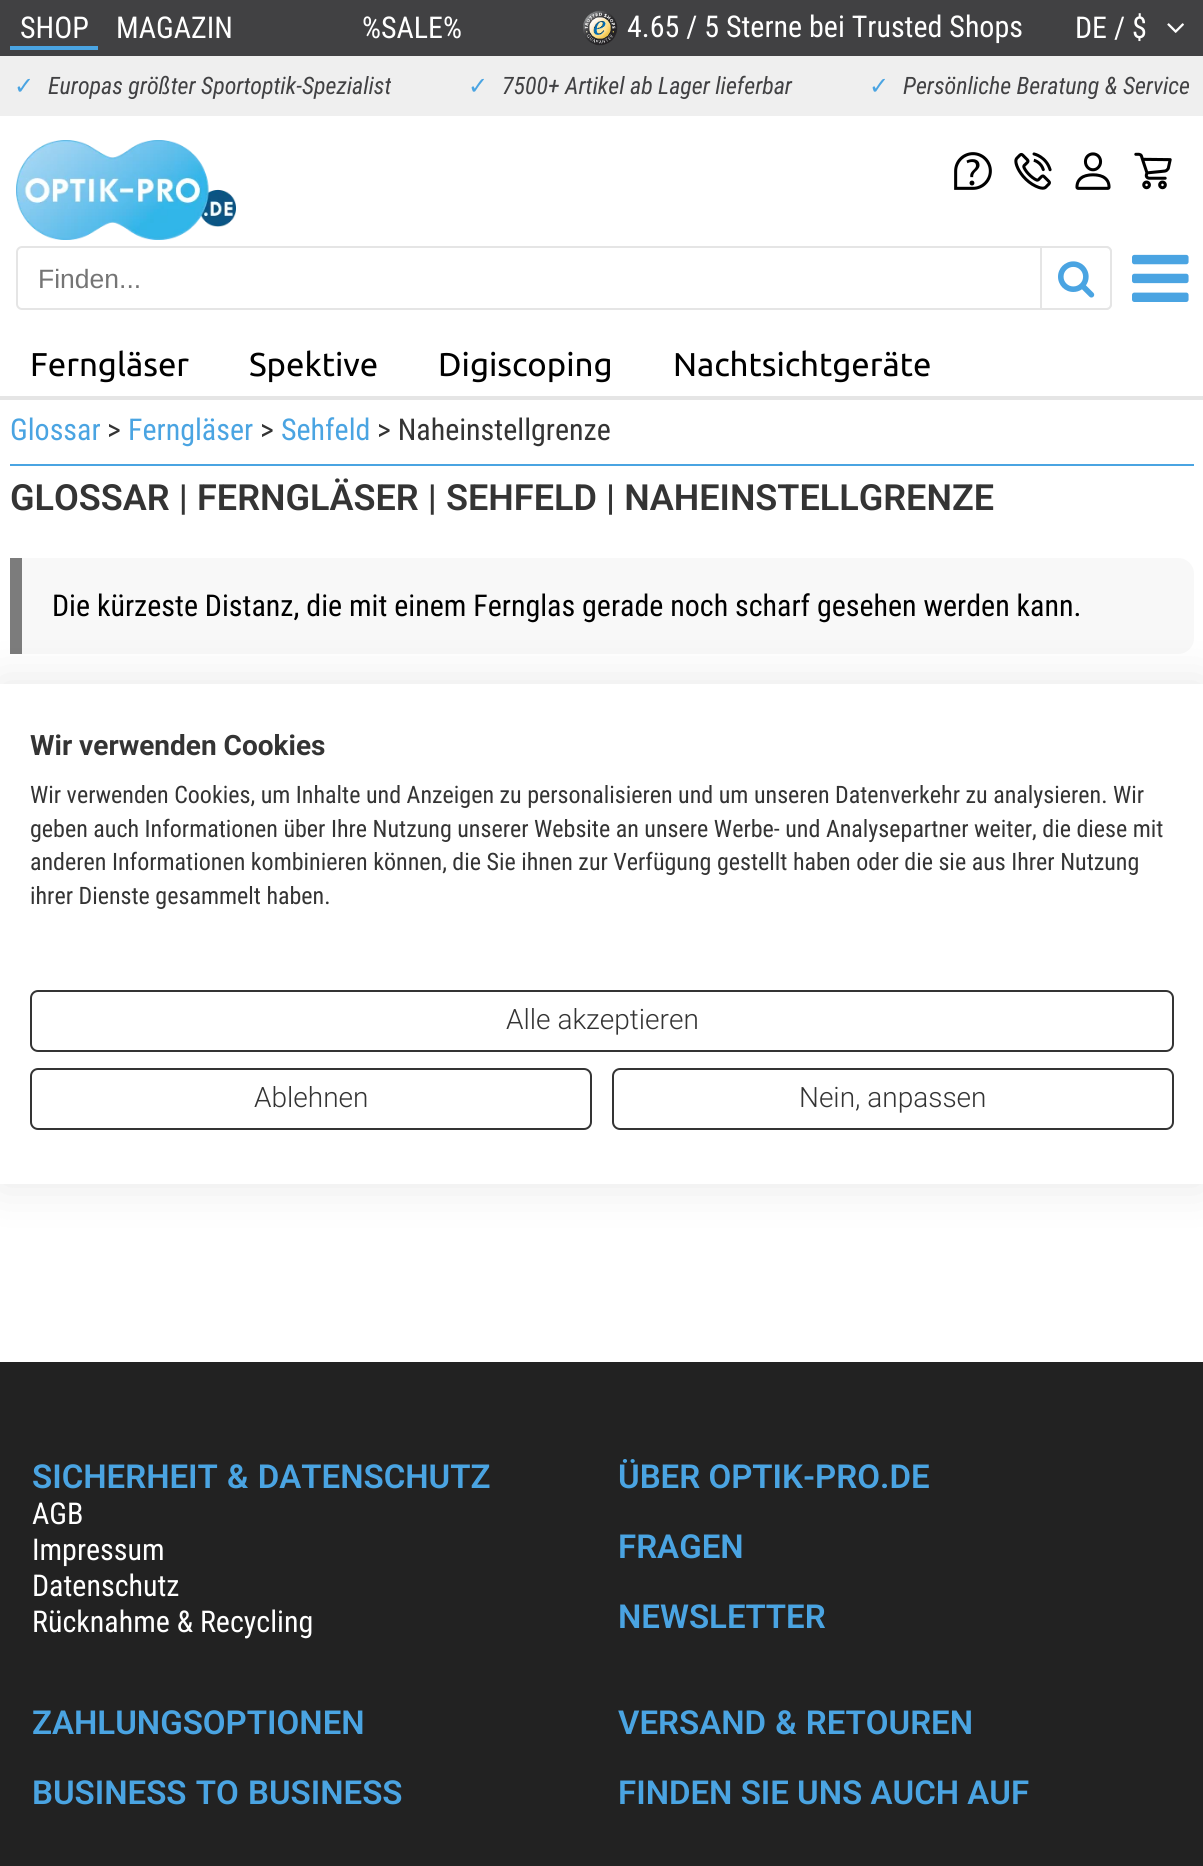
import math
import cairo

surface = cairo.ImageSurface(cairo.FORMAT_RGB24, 1203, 1866)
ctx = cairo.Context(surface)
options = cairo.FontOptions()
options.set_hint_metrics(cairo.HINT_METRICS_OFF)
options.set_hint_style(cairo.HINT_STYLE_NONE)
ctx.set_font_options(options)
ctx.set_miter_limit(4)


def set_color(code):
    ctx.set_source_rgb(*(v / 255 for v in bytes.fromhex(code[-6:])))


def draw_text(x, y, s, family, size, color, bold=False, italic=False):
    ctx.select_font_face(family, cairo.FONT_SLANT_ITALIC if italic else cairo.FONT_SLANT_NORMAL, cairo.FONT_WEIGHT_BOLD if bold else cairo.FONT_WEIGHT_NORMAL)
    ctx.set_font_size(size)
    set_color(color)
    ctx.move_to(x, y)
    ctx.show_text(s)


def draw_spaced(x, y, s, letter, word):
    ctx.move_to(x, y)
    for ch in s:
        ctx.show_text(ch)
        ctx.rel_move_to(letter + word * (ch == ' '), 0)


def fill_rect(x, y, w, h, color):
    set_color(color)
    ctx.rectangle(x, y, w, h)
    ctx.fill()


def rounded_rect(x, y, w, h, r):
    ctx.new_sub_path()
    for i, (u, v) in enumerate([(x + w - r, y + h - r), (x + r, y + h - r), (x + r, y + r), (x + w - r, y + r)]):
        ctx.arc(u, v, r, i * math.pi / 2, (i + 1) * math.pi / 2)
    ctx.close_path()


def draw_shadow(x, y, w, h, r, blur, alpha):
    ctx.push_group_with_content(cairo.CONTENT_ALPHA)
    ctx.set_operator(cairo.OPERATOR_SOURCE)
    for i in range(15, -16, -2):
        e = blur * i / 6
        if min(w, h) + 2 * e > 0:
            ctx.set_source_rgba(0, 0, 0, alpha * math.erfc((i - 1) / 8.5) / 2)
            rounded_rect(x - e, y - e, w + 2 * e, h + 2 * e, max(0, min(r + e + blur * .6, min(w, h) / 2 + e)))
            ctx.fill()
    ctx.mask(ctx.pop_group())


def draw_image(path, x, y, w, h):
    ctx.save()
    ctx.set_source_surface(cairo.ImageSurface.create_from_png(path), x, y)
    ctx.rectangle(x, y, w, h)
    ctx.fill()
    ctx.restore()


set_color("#ffffff")
ctx.paint()
fill_rect(0, 0, 1203, 56, "#414143")
draw_text(20, 38, "SHOP", "Roboto Condensed", 30, "#ffffff")
fill_rect(10, 46, 88, 4, "#4aa4e2")
draw_text(116, 38, "MAGAZIN", "Roboto Condensed", 30, "#ffffff")
draw_text(362, 38, "%SALE%", "Roboto Condensed", 30, "#ffffff")
draw_image("assets/img1.png", 583, 10, 35, 36)
draw_text(627, 37, "4.65 / 5 Sterne bei Trusted Shops", "Roboto Condensed", 30, "#ffffff")
draw_text(1075, 38, "DE / $", "Roboto Condensed", 30, "#ffffff")
draw_image("assets/img2.png", 1167, 23, 17, 10)
fill_rect(0, 56, 1203, 60, "#efefef")
draw_text(14, 94, "✓", "DejaVu Sans", 24, "#4aa4e2")
draw_text(48, 94, "Europas größter Sportoptik-Spezialist", "Roboto Condensed", 24, "#414143", italic=True)
draw_text(468, 94, "✓", "DejaVu Sans", 24, "#4aa4e2")
draw_text(502, 94, "7500+ Artikel ab Lager lieferbar", "Roboto Condensed", 24, "#414143", italic=True)
draw_text(869, 94, "✓", "DejaVu Sans", 24, "#4aa4e2")
draw_text(903, 94, "Persönliche Beratung & Service", "Roboto Condensed", 24, "#414143", italic=True)
draw_image("assets/img3.png", 16, 140, 220, 100)
draw_image("assets/img4.png", 954, 152, 38, 38)
draw_image("assets/img5.png", 1014, 152, 38, 38)
draw_image("assets/img6.png", 1075, 152, 36, 38)
draw_image("assets/img7.png", 1134, 152, 38, 38)
rounded_rect(17, 247, 1094, 62, 5)
set_color("#e5e5e5")
ctx.stroke()
draw_text(38, 288, "Finden...", "Liberation Sans", 26.5, "#757575")
set_color("#ffffff")
ctx.new_path()
ctx.move_to(1041, 247)
ctx.line_to(1106, 247)
ctx.curve_to(1109, 247, 1111, 249, 1111, 252)
ctx.line_to(1111, 304)
ctx.curve_to(1111, 307, 1109, 309, 1106, 309)
ctx.line_to(1041, 309)
ctx.close_path()
ctx.fill_preserve()
set_color("#e5e5e5")
ctx.stroke()
draw_image("assets/img8.png", 1058, 261, 37, 37)
draw_image("assets/img9.png", 1132, 254, 57, 48)
draw_text(30, 376, "Ferngläser", "Ubuntu", 33, "#000000")
draw_text(249, 376, "Spektive", "Ubuntu", 33, "#000000")
draw_text(438, 376, "Digiscoping", "Ubuntu", 33, "#000000")
draw_text(673, 376, "Nachtsichtgeräte", "Ubuntu", 33, "#000000")
fill_rect(0, 396, 1203, 4, "#e5e5e5")
draw_text(10, 440, "Glossar", "Roboto Condensed", 30, "#4aa4e2")
draw_text(107, 440, ">", "Roboto Condensed", 30, "#343434")
draw_text(128, 440, "Ferngläser", "Roboto Condensed", 30, "#4aa4e2")
draw_text(260, 440, ">", "Roboto Condensed", 30, "#343434")
draw_text(281, 440, "Sehfeld", "Roboto Condensed", 30, "#4aa4e2")
draw_text(377, 440, "> Naheinstellgrenze", "Roboto Condensed", 30, "#343434")
fill_rect(10, 464, 1184, 2, "#4aa4e2")
ctx.select_font_face("Roboto SemiBold")
ctx.set_font_size(36)
set_color("#343434")
draw_spaced(10, 510, "GLOSSAR | FERNGLÄSER | SEHFELD | NAHEINSTELLGRENZE", 0, 0.25)
set_color("#f8f8f8")
ctx.new_path()
ctx.move_to(10, 558)
ctx.line_to(1178, 558)
ctx.curve_to(1187, 558, 1194, 565, 1194, 574)
ctx.line_to(1194, 638)
ctx.curve_to(1194, 647, 1187, 654, 1178, 654)
ctx.line_to(10, 654)
ctx.close_path()
ctx.fill()
fill_rect(10, 558, 12, 96, "#7c7c7c")
draw_text(52, 616, "Die kürzeste Distanz, die mit einem Fernglas gerade noch scharf gesehen werden kann.", "Roboto Condensed", 30, "#000000")
fill_rect(0, 1362, 1203, 504, "#222222")
ctx.select_font_face("Roboto SemiBold")
ctx.set_font_size(33)
set_color("#4aa4e2")
draw_spaced(32, 1488, "SICHERHEIT & DATENSCHUTZ", 0, 1)
draw_text(32, 1524, "AGB", "Roboto Condensed", 30, "#ffffff")
draw_text(32, 1560, "Impressum", "Roboto Condensed", 30, "#ffffff")
draw_text(32, 1596, "Datenschutz", "Roboto Condensed", 30, "#ffffff")
draw_text(32, 1632, "Rücknahme & Recycling", "Roboto Condensed", 30, "#ffffff")
draw_text(618, 1488, "ÜBER OPTIK-PRO.DE", "Roboto SemiBold", 33, "#4aa4e2")
draw_text(618, 1558, "FRAGEN", "Roboto SemiBold", 33, "#4aa4e2")
draw_text(618, 1628, "NEWSLETTER", "Roboto SemiBold", 33, "#4aa4e2")
draw_text(32, 1734, "ZAHLUNGSOPTIONEN", "Roboto SemiBold", 33, "#4aa4e2")
draw_spaced(618, 1734, "VERSAND & RETOUREN", 0, 1)
draw_spaced(32, 1804, "BUSINESS TO BUSINESS", 0, 1)
draw_text(618, 1804, "FINDEN SIE UNS AUCH AUF", "Roboto SemiBold", 33, "#4aa4e2")
ctx.save()
ctx.set_fill_rule(cairo.FILL_RULE_EVEN_ODD)
ctx.new_path()
ctx.move_to(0, 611)
ctx.line_to(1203, 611)
ctx.line_to(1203, 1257)
ctx.line_to(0, 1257)
ctx.close_path()
ctx.move_to(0, 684)
ctx.line_to(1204, 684)
ctx.line_to(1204, 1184)
ctx.line_to(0, 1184)
ctx.close_path()
ctx.clip()
set_color("#000000")
draw_shadow(0, 684, 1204, 500, 0, 24, 0.1)
ctx.restore()
draw_text(30, 755, "Wir verwenden Cookies", "Roboto", 28, "#343434", bold=True)
draw_text(30, 803, "Wir verwenden Cookies, um Inhalte und Anzeigen zu personalisieren und um unseren Datenverkehr zu analysieren. Wir", "Roboto Condensed", 24, "#343434")
draw_text(30, 837, "geben auch Informationen über Ihre Nutzung unserer Website an unsere Werbe- und Analysepartner weiter, die diese mit", "Roboto Condensed", 24, "#343434")
draw_text(30, 870, "anderen Informationen kombinieren können, die Sie ihnen zur Verfügung gestellt haben oder die sie aus Ihrer Nutzung", "Roboto Condensed", 24, "#343434")
draw_text(30, 904, "ihrer Dienste gesammelt haben.", "Roboto Condensed", 24, "#343434")
rounded_rect(31, 991, 1142, 60, 7)
ctx.stroke()
draw_text(506, 1029, "Alle akzeptieren", "Roboto Light", 28, "#343434")
rounded_rect(31, 1069, 560, 60, 7)
ctx.stroke()
draw_text(254, 1107, "Ablehnen", "Roboto Light", 28, "#343434")
rounded_rect(613, 1069, 560, 60, 7)
ctx.stroke()
draw_text(799, 1107, "Nein, anpassen", "Roboto Light", 28, "#343434")
surface.write_to_png("output.png")
